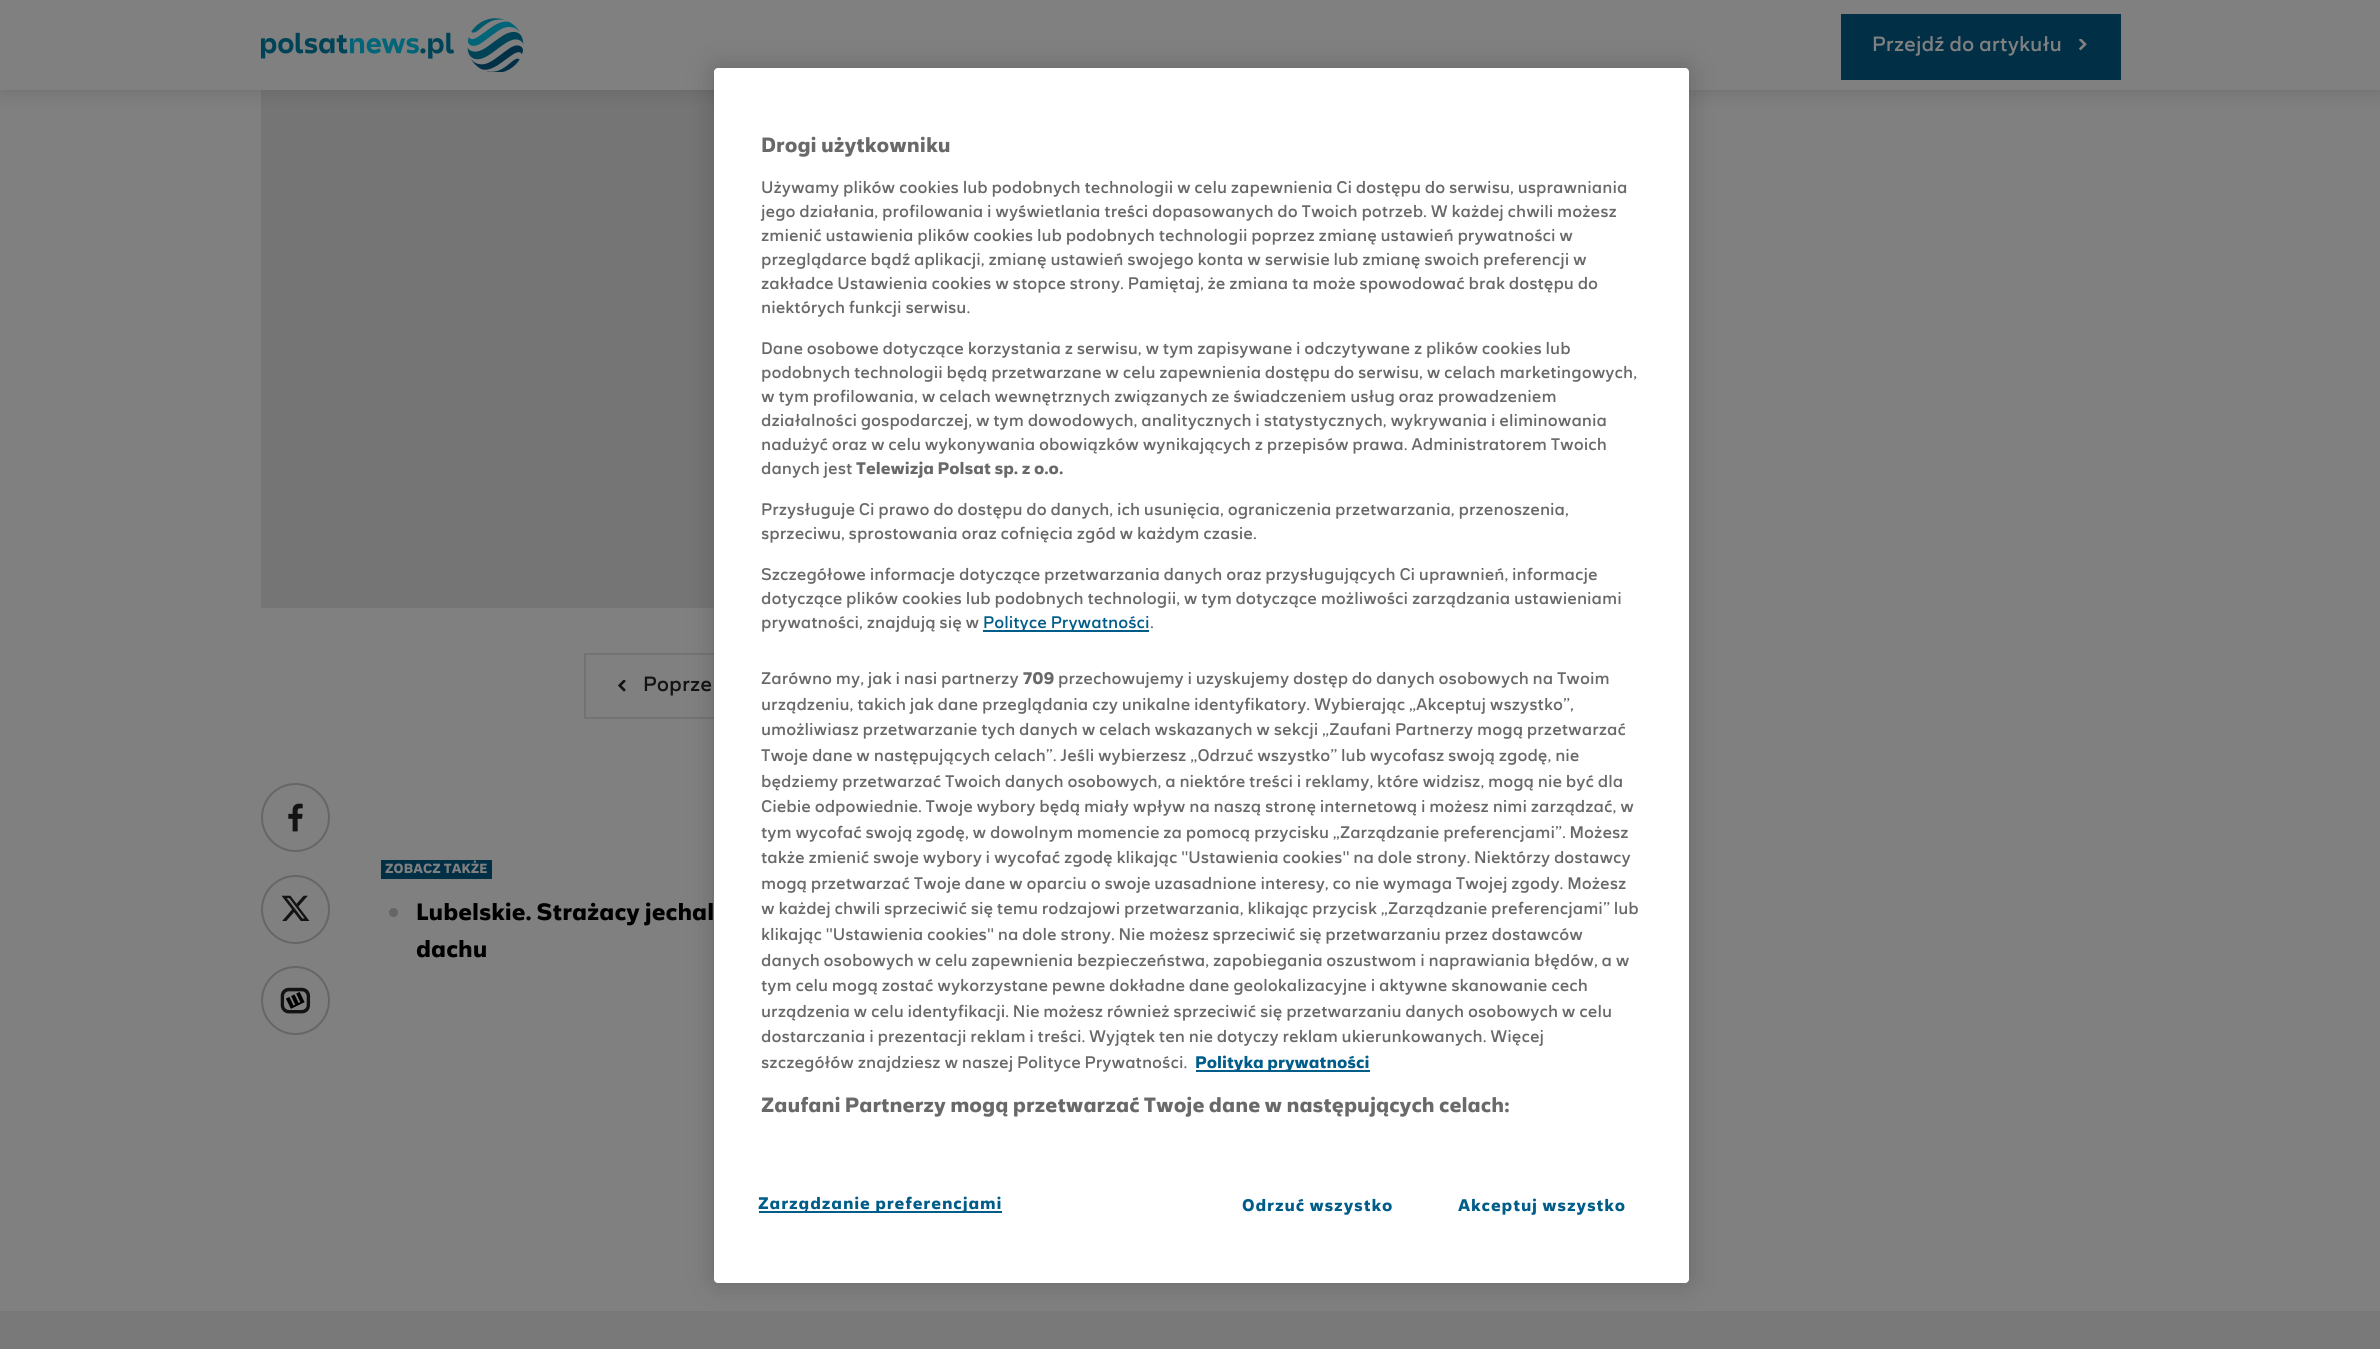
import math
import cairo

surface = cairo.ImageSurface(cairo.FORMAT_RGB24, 2380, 1349)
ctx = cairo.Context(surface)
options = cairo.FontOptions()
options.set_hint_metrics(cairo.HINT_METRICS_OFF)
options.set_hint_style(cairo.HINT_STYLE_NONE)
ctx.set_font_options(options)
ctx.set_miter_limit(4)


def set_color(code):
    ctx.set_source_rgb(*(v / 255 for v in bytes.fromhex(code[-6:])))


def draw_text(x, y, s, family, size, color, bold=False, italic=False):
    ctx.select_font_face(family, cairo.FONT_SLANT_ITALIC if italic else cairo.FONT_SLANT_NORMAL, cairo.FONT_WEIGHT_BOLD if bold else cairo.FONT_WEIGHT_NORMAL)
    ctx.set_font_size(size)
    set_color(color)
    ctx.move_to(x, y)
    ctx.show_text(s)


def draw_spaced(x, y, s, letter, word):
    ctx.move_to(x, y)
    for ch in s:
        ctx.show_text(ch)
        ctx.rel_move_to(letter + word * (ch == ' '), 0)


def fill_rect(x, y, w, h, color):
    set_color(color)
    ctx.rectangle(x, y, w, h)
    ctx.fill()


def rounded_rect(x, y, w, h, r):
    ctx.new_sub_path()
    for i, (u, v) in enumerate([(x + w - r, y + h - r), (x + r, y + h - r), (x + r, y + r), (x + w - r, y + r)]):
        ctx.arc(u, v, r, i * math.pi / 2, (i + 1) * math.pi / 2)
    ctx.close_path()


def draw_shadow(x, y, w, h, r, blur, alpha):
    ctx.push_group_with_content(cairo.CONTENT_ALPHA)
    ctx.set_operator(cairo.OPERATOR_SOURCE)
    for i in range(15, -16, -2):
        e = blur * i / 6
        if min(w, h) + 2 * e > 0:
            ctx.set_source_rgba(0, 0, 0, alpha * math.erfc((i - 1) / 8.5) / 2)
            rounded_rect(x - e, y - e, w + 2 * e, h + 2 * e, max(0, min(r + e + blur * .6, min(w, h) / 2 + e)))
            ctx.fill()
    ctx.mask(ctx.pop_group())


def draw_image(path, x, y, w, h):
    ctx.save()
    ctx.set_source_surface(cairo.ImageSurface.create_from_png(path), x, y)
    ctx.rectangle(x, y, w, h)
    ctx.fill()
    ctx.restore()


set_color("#797979")
ctx.paint()
fill_rect(0, 90, 2380, 1221, "#808080")
fill_rect(261, 90, 453, 518, "#757575")
set_color("#000000")
draw_shadow(0, -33, 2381, 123, 0, 11, 0.15)
fill_rect(0, 0, 2380, 90, "#808080")
draw_image("assets/img1.png", 261, 18, 263, 54)
fill_rect(1841, 14, 280, 66, "#002f46")
draw_text(1872, 51, "Przejdź do artykułu", "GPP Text", 21, "#808080")
draw_image("assets/img2.png", 2079, 39, 8, 12)
ctx.rectangle(585, 654, 200, 64)
set_color("#737373")
ctx.stroke()
draw_image("assets/img3.png", 618, 680, 8, 12)
draw_text(643, 691, "Poprze", "GPP Text", 21, "#131313")
draw_image("assets/img4.png", 288, 803, 15, 29)
ctx.arc(295.5, 817.5, 33.5, 0, 2 * math.pi)
set_color("#666666")
ctx.stroke()
draw_image("assets/img5.png", 281, 895, 29, 26)
ctx.arc(295.5, 909.5, 33.5, 0, 2 * math.pi)
ctx.stroke()
draw_image("assets/img6.png", 280, 987, 31, 27)
ctx.arc(295.5, 1000.5, 33.5, 0, 2 * math.pi)
ctx.stroke()
fill_rect(381, 860, 111, 19, "#002f46")
ctx.select_font_face("GPP Text", cairo.FONT_SLANT_NORMAL, cairo.FONT_WEIGHT_BOLD)
ctx.set_font_size(13.5)
set_color("#808080")
draw_spaced(385, 873, "ZOBACZ TAKŻE", 0.1, 0)
set_color("#666666")
ctx.new_path()
ctx.arc(393.5, 912.5, 4.5, 0, 2 * math.pi)
ctx.fill()
draw_text(416, 920, "Lubelskie. Strażacy jechal", "GPP Text", 24, "#000000", bold=True)
draw_text(416, 957, "dachu", "GPP Text", 24, "#000000", bold=True)
set_color("#000000")
draw_shadow(714, 68, 975, 1215, 4, 13.5, 0.2)
set_color("#ffffff")
rounded_rect(714, 68, 975, 1215, 4)
ctx.fill()
fill_rect(717, 68, 969, 1, "#ffffff")
gradient = cairo.RadialGradient(0, 0, 0, 0, 0, 1)
gradient.set_matrix(cairo.Matrix(1 / 485, 0, 0, 1 / 15, -1 * 1202 / 485, -1 * 68 / 15))
gradient.add_color_stop_rgba(0, 0.8, 0.8, 0.8, 1)
gradient.add_color_stop_rgba(1, 1, 1, 1, 1)
ctx.set_source(gradient)
ctx.rectangle(741, 68, 922, 14)
ctx.fill()
gradient = cairo.LinearGradient(1202, 67, 1202, 113)
gradient.add_color_stop_rgba(0.33, 1, 1, 1, 1)
gradient.add_color_stop_rgba(1, 1, 1, 1, 0)
ctx.set_source(gradient)
ctx.rectangle(741, 68, 922, 14)
ctx.fill()
draw_text(761, 152, "Drogi użytkowniku", "GPP Text", 21, "#696969", bold=True)
draw_text(761, 193, "Używamy plików cookies lub podobnych technologii w celu zapewnienia Ci dostępu do serwisu, usprawniania", "GPP Text", 17.07, "#696969")
draw_text(761, 217, "jego działania, profilowania i wyświetlania treści dopasowanych do Twoich potrzeb. W każdej chwili możesz", "GPP Text", 17.07, "#696969")
draw_text(761, 241, "zmienić ustawienia plików cookies lub podobnych technologii poprzez zmianę ustawień prywatności w", "GPP Text", 17.07, "#696969")
draw_text(761, 265, "przeglądarce bądź aplikacji, zmianę ustawień swojego konta w serwisie lub zmianę swoich preferencji w", "GPP Text", 17.07, "#696969")
draw_text(761, 289, "zakładce Ustawienia cookies w stopce strony. Pamiętaj, że zmiana ta może spowodować brak dostępu do", "GPP Text", 17.07, "#696969")
draw_text(761, 313, "niektórych funkcji serwisu.", "GPP Text", 17.07, "#696969")
draw_text(761, 354, "Dane osobowe dotyczące korzystania z serwisu, w tym zapisywane i odczytywane z plików cookies lub", "GPP Text", 17.07, "#696969")
draw_text(761, 378, "podobnych technologii będą przetwarzane w celu zapewnienia dostępu do serwisu, w celach marketingowych,", "GPP Text", 17.07, "#696969")
draw_text(761, 402, "w tym profilowania, w celach wewnętrznych związanych ze świadczeniem usług oraz prowadzeniem", "GPP Text", 17.07, "#696969")
draw_text(761, 426, "działalności gospodarczej, w tym dowodowych, analitycznych i statystycznych, wykrywania i eliminowania", "GPP Text", 17.07, "#696969")
draw_text(761, 450, "nadużyć oraz w celu wykonywania obowiązków wynikających z przepisów prawa. Administratorem Twoich", "GPP Text", 17.07, "#696969")
draw_text(761, 474, "danych jest", "GPP Text", 17.07, "#696969")
draw_text(856, 474, "Telewizja Polsat sp. z o.o.", "GPP Text", 17.07, "#696969", bold=True)
draw_text(761, 515, "Przysługuje Ci prawo do dostępu do danych, ich usunięcia, ograniczenia przetwarzania, przenoszenia,", "GPP Text", 17.07, "#696969")
draw_text(761, 539, "sprzeciwu, sprostowania oraz cofnięcia zgód w każdym czasie.", "GPP Text", 17.07, "#696969")
draw_text(761, 580, "Szczegółowe informacje dotyczące przetwarzania danych oraz przysługujących Ci uprawnień, informacje", "GPP Text", 17.07, "#696969")
draw_text(761, 604, "dotyczące plików cookies lub podobnych technologii, w tym dotyczące możliwości zarządzania ustawieniami", "GPP Text", 17.07, "#696969")
draw_text(761, 628, "prywatności, znajdują się w", "GPP Text", 17.07, "#696969")
fill_rect(983, 630, 166, 2, "#005c89")
draw_text(983, 628, "Polityce Prywatności", "GPP Text", 17.07, "#005c89")
draw_text(1150, 628, ".", "GPP Text", 17.07, "#696969")
draw_text(761, 684, "Zarówno my, jak i nasi partnerzy", "GPP Text", 17.07, "#696969")
draw_text(1023, 684, "709", "GPP Text", 17.07, "#696969", bold=True)
draw_text(1058, 684, "przechowujemy i uzyskujemy dostęp do danych osobowych na Twoim", "GPP Text", 17.07, "#696969")
draw_text(761, 710, "urządzeniu, takich jak dane przeglądania czy unikalne identyfikatory. Wybierając „Akceptuj wszystko”,", "GPP Text", 17.07, "#696969")
draw_text(761, 735, "umożliwiasz przetwarzanie tych danych w celach wskazanych w sekcji „Zaufani Partnerzy mogą przetwarzać", "GPP Text", 17.07, "#696969")
draw_text(761, 761, "Twoje dane w następujących celach”. Jeśli wybierzesz „Odrzuć wszystko” lub wycofasz swoją zgodę, nie", "GPP Text", 17.07, "#696969")
draw_text(761, 787, "będziemy przetwarzać Twoich danych osobowych, a niektóre treści i reklamy, które widzisz, mogą nie być dla", "GPP Text", 17.07, "#696969")
draw_text(761, 812, "Ciebie odpowiednie. Twoje wybory będą miały wpływ na naszą stronę internetową i możesz nimi zarządzać, w", "GPP Text", 17.07, "#696969")
draw_text(761, 838, "tym wycofać swoją zgodę, w dowolnym momencie za pomocą przycisku „Zarządzanie preferencjami”. Możesz", "GPP Text", 17.07, "#696969")
draw_text(761, 863, "także zmienić swoje wybory i wycofać zgodę klikając \"Ustawienia cookies\" na dole strony. Niektórzy dostawcy", "GPP Text", 17.07, "#696969")
draw_text(761, 889, "mogą przetwarzać Twoje dane w oparciu o swoje uzasadnione interesy, co nie wymaga Twojej zgody. Możesz", "GPP Text", 17.07, "#696969")
draw_text(761, 914, "w każdej chwili sprzeciwić się temu rodzajowi przetwarzania, klikając przycisk „Zarządzanie preferencjami” lub", "GPP Text", 17.07, "#696969")
draw_text(761, 940, "klikając \"Ustawienia cookies\" na dole strony. Nie możesz sprzeciwić się przetwarzaniu przez dostawców", "GPP Text", 17.07, "#696969")
draw_text(761, 966, "danych osobowych w celu zapewnienia bezpieczeństwa, zapobiegania oszustwom i naprawiania błędów, a w", "GPP Text", 17.07, "#696969")
draw_text(761, 991, "tym celu mogą zostać wykorzystane pewne dokładne dane geolokalizacyjne i aktywne skanowanie cech", "GPP Text", 17.07, "#696969")
draw_text(761, 1017, "urządzenia w celu identyfikacji. Nie możesz również sprzeciwić się przetwarzaniu danych osobowych w celu", "GPP Text", 17.07, "#696969")
draw_text(761, 1042, "dostarczania i prezentacji reklam i treści. Wyjątek ten nie dotyczy reklam ukierunkowanych. Więcej", "GPP Text", 17.07, "#696969")
draw_text(761, 1068, "szczegółów znajdziesz w naszej Polityce Prywatności.", "GPP Text", 17.07, "#696969")
fill_rect(1196, 1070, 174, 2, "#005c89")
draw_text(1195, 1068, "Polityka prywatności", "GPP Text", 17.07, "#005c89", bold=True)
draw_text(761, 1112, "Zaufani Partnerzy mogą przetwarzać Twoje dane w następujących celach:", "GPP Text", 21, "#696969", bold=True)
fill_rect(759, 1211, 243, 2, "#005c89")
ctx.set_font_size(17.07)
draw_spaced(758, 1209, "Zarządzanie preferencjami", 0.85, 0)
draw_spaced(1242, 1211, "Odrzuć wszystko", 0.85, 0)
draw_spaced(1458, 1211, "Akceptuj wszystko", 0.85, 0)
surface.write_to_png("output.png")
